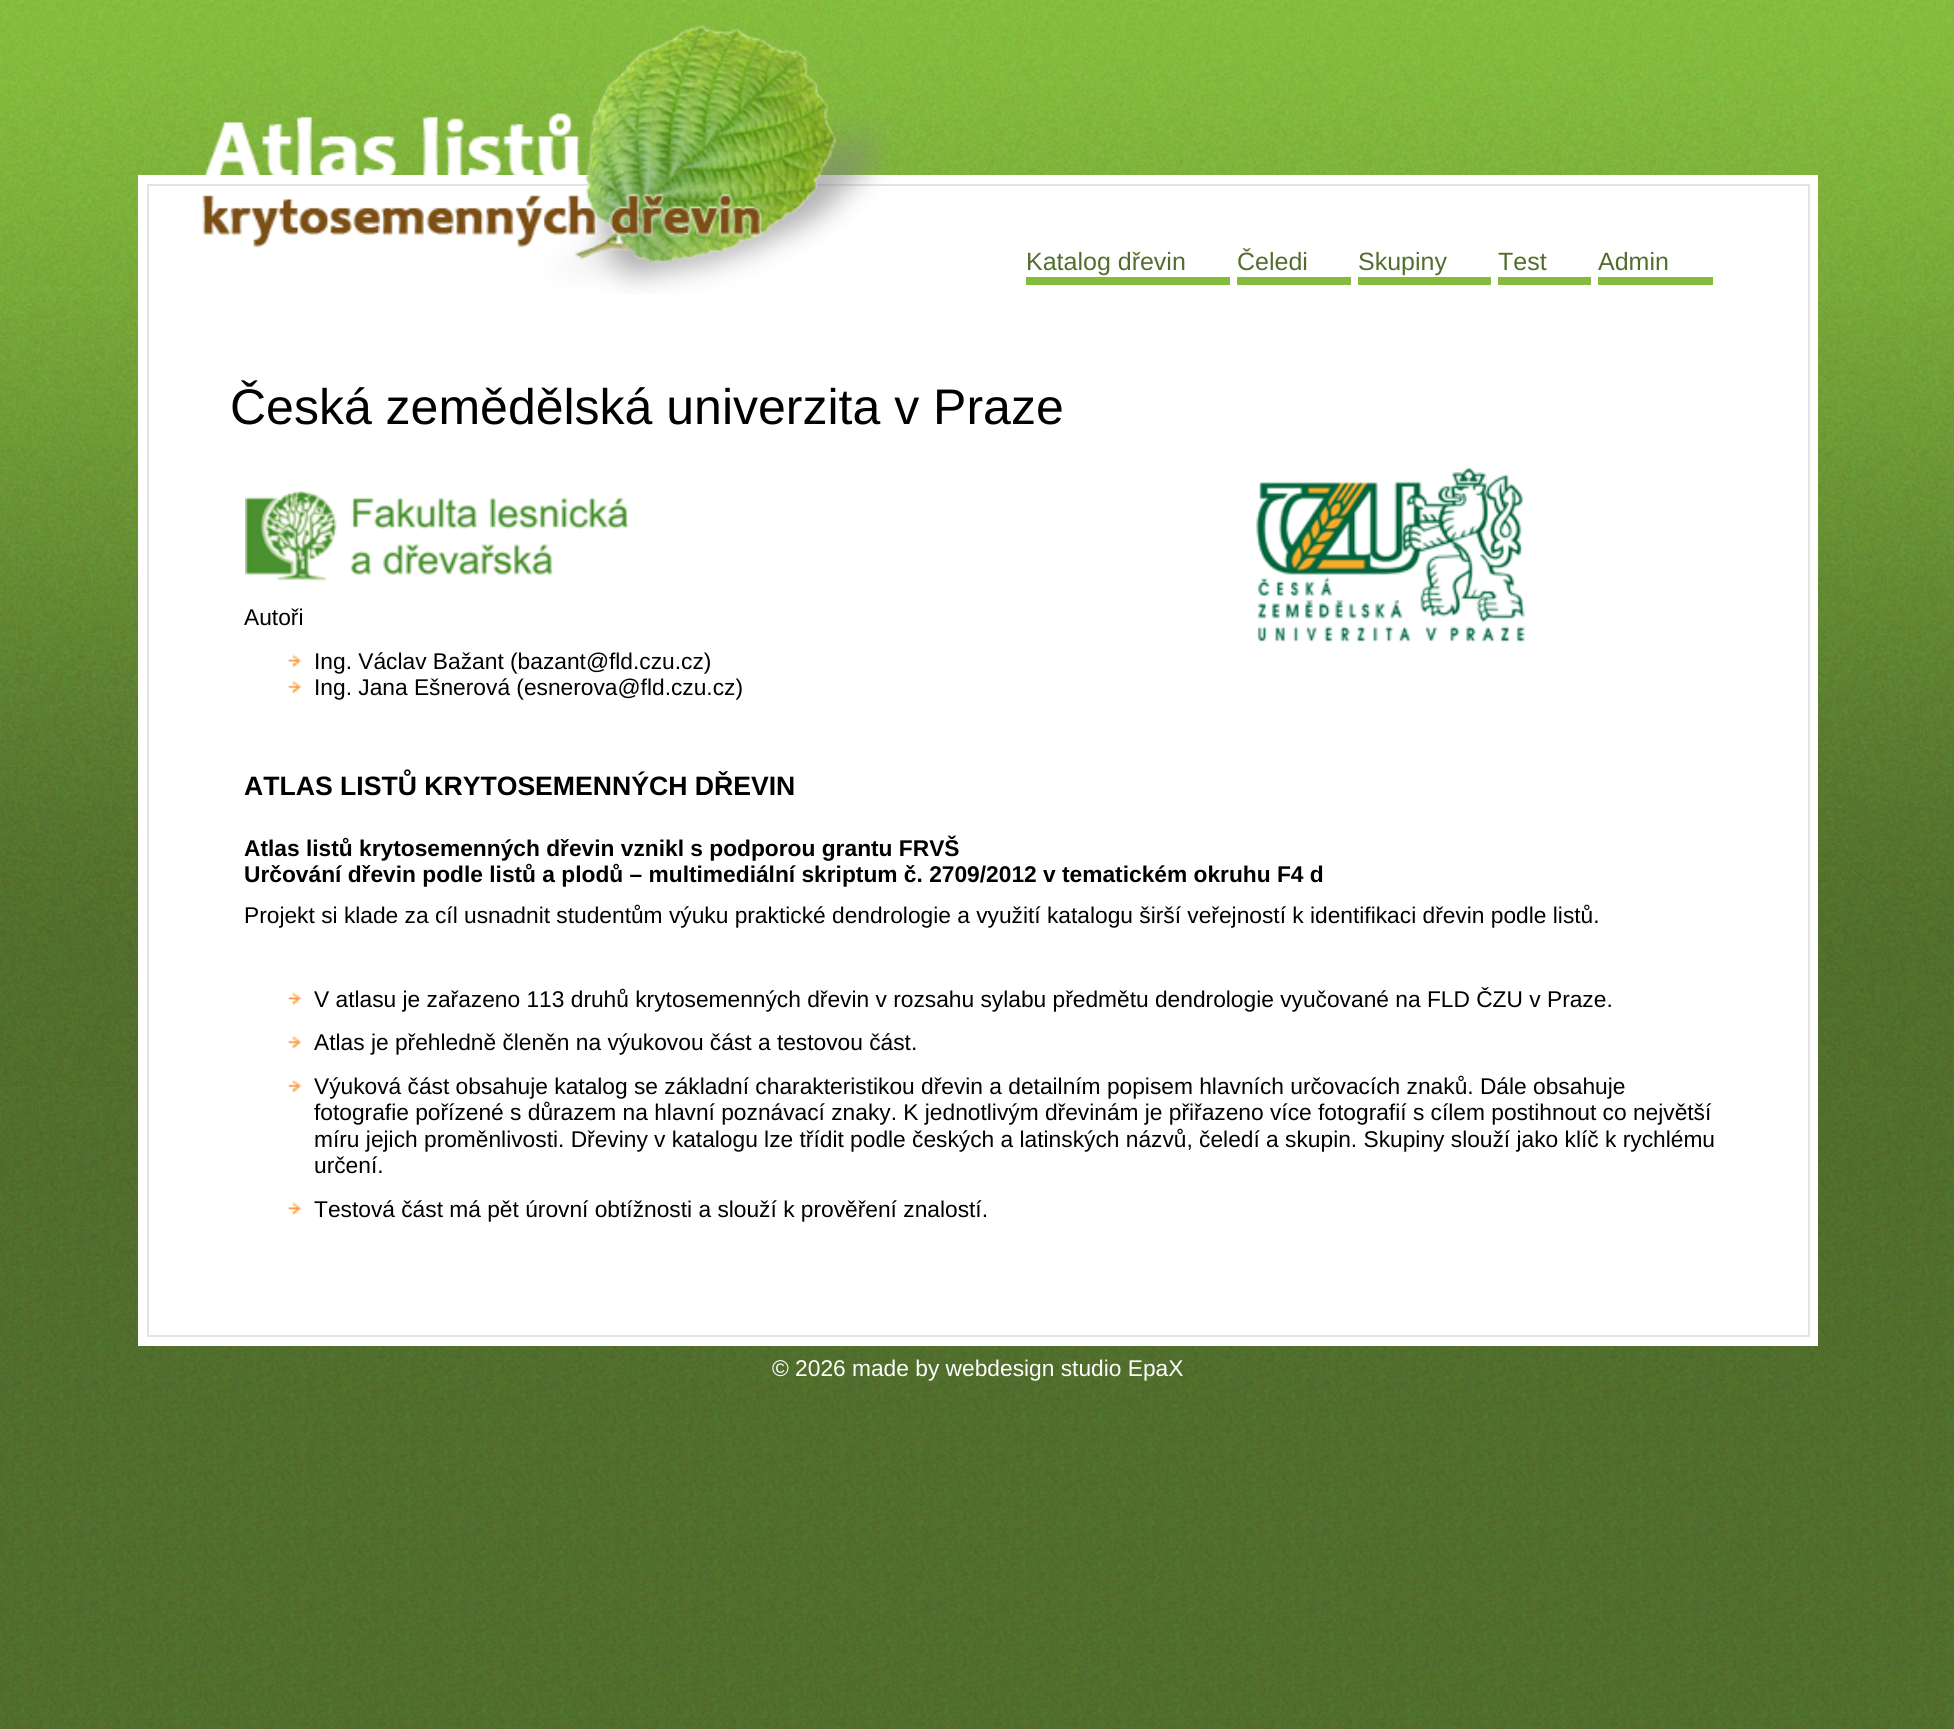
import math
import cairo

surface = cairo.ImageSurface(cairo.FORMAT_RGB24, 1954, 1729)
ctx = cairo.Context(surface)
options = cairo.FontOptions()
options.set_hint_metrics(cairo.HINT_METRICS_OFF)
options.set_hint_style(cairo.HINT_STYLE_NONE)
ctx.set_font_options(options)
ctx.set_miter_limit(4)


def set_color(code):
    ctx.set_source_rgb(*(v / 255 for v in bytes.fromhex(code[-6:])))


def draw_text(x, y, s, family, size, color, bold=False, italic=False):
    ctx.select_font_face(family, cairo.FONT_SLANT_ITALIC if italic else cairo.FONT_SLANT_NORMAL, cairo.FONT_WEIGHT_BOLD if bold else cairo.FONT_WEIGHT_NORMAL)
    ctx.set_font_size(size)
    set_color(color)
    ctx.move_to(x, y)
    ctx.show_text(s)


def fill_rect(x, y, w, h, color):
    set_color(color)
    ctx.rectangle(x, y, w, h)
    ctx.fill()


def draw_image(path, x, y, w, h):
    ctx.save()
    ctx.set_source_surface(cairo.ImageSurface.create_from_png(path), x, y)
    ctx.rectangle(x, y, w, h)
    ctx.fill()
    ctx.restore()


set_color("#ffffff")
ctx.paint()
draw_image("assets/img1.png", 0, 1121, 1954, 608)
draw_image("assets/img2.png", 0, 0, 1954, 1122)
fill_rect(138, 175, 1680, 1171, "#ffffff")
ctx.rectangle(148, 185, 1661, 1151)
set_color("#e4e4e4")
ctx.stroke()
draw_image("assets/img3.png", 202, 24, 690, 270)
fill_rect(1026, 277, 204, 8, "#84bc3d")
draw_text(1026, 270, "Katalog dřevin", "Liberation Sans", 25, "#526e2d")
fill_rect(1237, 277, 114, 8, "#84bc3d")
draw_text(1237, 270, "Čeledi", "Liberation Sans", 25, "#526e2d")
fill_rect(1358, 277, 133, 8, "#84bc3d")
draw_text(1358, 270, "Skupiny", "Liberation Sans", 25, "#526e2d")
fill_rect(1498, 277, 93, 8, "#84bc3d")
draw_text(1498, 270, "Test", "Liberation Sans", 25, "#526e2d")
fill_rect(1598, 277, 115, 8, "#84bc3d")
draw_text(1598, 270, "Admin", "Liberation Sans", 25, "#526e2d")
draw_text(230, 424, "Česká zemědělská univerzita v Praze", "Liberation Sans", 50, "#000000")
draw_image("assets/img4.png", 245, 491, 384, 91)
draw_image("assets/img5.png", 1256, 467, 269, 176)
draw_text(244, 625, "Autoři", "Liberation Sans", 22.75, "#000000")
draw_image("assets/img6.png", 288, 654, 14, 13)
draw_text(314, 669, "Ing. Václav Bažant (bazant@fld.czu.cz)", "Liberation Sans", 22.75, "#000000")
draw_image("assets/img7.png", 288, 680, 14, 13)
draw_text(314, 695, "Ing. Jana Ešnerová (esnerova@fld.czu.cz)", "Liberation Sans", 22.75, "#000000")
draw_text(244, 795, "ATLAS LISTŮ KRYTOSEMENNÝCH DŘEVIN", "Liberation Sans", 26.6, "#000000", bold=True)
draw_text(244, 856, "Atlas listů krytosemenných dřevin vznikl s podporou grantu FRVŠ", "Liberation Sans", 22.75, "#000000", bold=True)
draw_text(244, 882, "Určování dřevin podle listů a plodů – multimediální skriptum č. 2709/2012 v tematickém okruhu F4 d", "Liberation Sans", 22.75, "#000000", bold=True)
draw_text(244, 923, "Projekt si klade za cíl usnadnit studentům výuku praktické dendrologie a využití katalogu širší veřejností k identifikaci dřevin podle listů.", "Liberation Sans", 22.75, "#000000")
draw_image("assets/img8.png", 288, 992, 14, 13)
draw_text(314, 1007, "V atlasu je zařazeno 113 druhů krytosemenných dřevin v rozsahu sylabu předmětu dendrologie vyučované na FLD ČZU v Praze.", "Liberation Sans", 22.75, "#000000")
draw_image("assets/img9.png", 288, 1036, 14, 13)
draw_text(314, 1050, "Atlas je přehledně členěn na výukovou část a testovou část.", "Liberation Sans", 22.75, "#000000")
draw_image("assets/img7.png", 288, 1079, 14, 13)
draw_text(314, 1094, "Výuková část obsahuje katalog se základní charakteristikou dřevin a detailním popisem hlavních určovacích znaků. Dále obsahuje", "Liberation Sans", 22.75, "#000000")
draw_text(314, 1120, "fotografie pořízené s důrazem na hlavní poznávací znaky. K jednotlivým dřevinám je přiřazeno více fotografií s cílem postihnout co největší", "Liberation Sans", 22.75, "#000000")
draw_text(314, 1147, "míru jejich proměnlivosti. Dřeviny v katalogu lze třídit podle českých a latinských názvů, čeledí a skupin. Skupiny slouží jako klíč k rychlému", "Liberation Sans", 22.75, "#000000")
draw_text(314, 1173, "určení.", "Liberation Sans", 22.75, "#000000")
draw_image("assets/img8.png", 288, 1202, 14, 13)
draw_text(314, 1217, "Testová část má pět úrovní obtížnosti a slouží k prověření znalostí.", "Liberation Sans", 22.75, "#000000")
draw_text(772, 1376, "© 2026 made by webdesign studio EpaX", "Liberation Sans", 22.75, "#ffffff")
surface.write_to_png("output.png")
